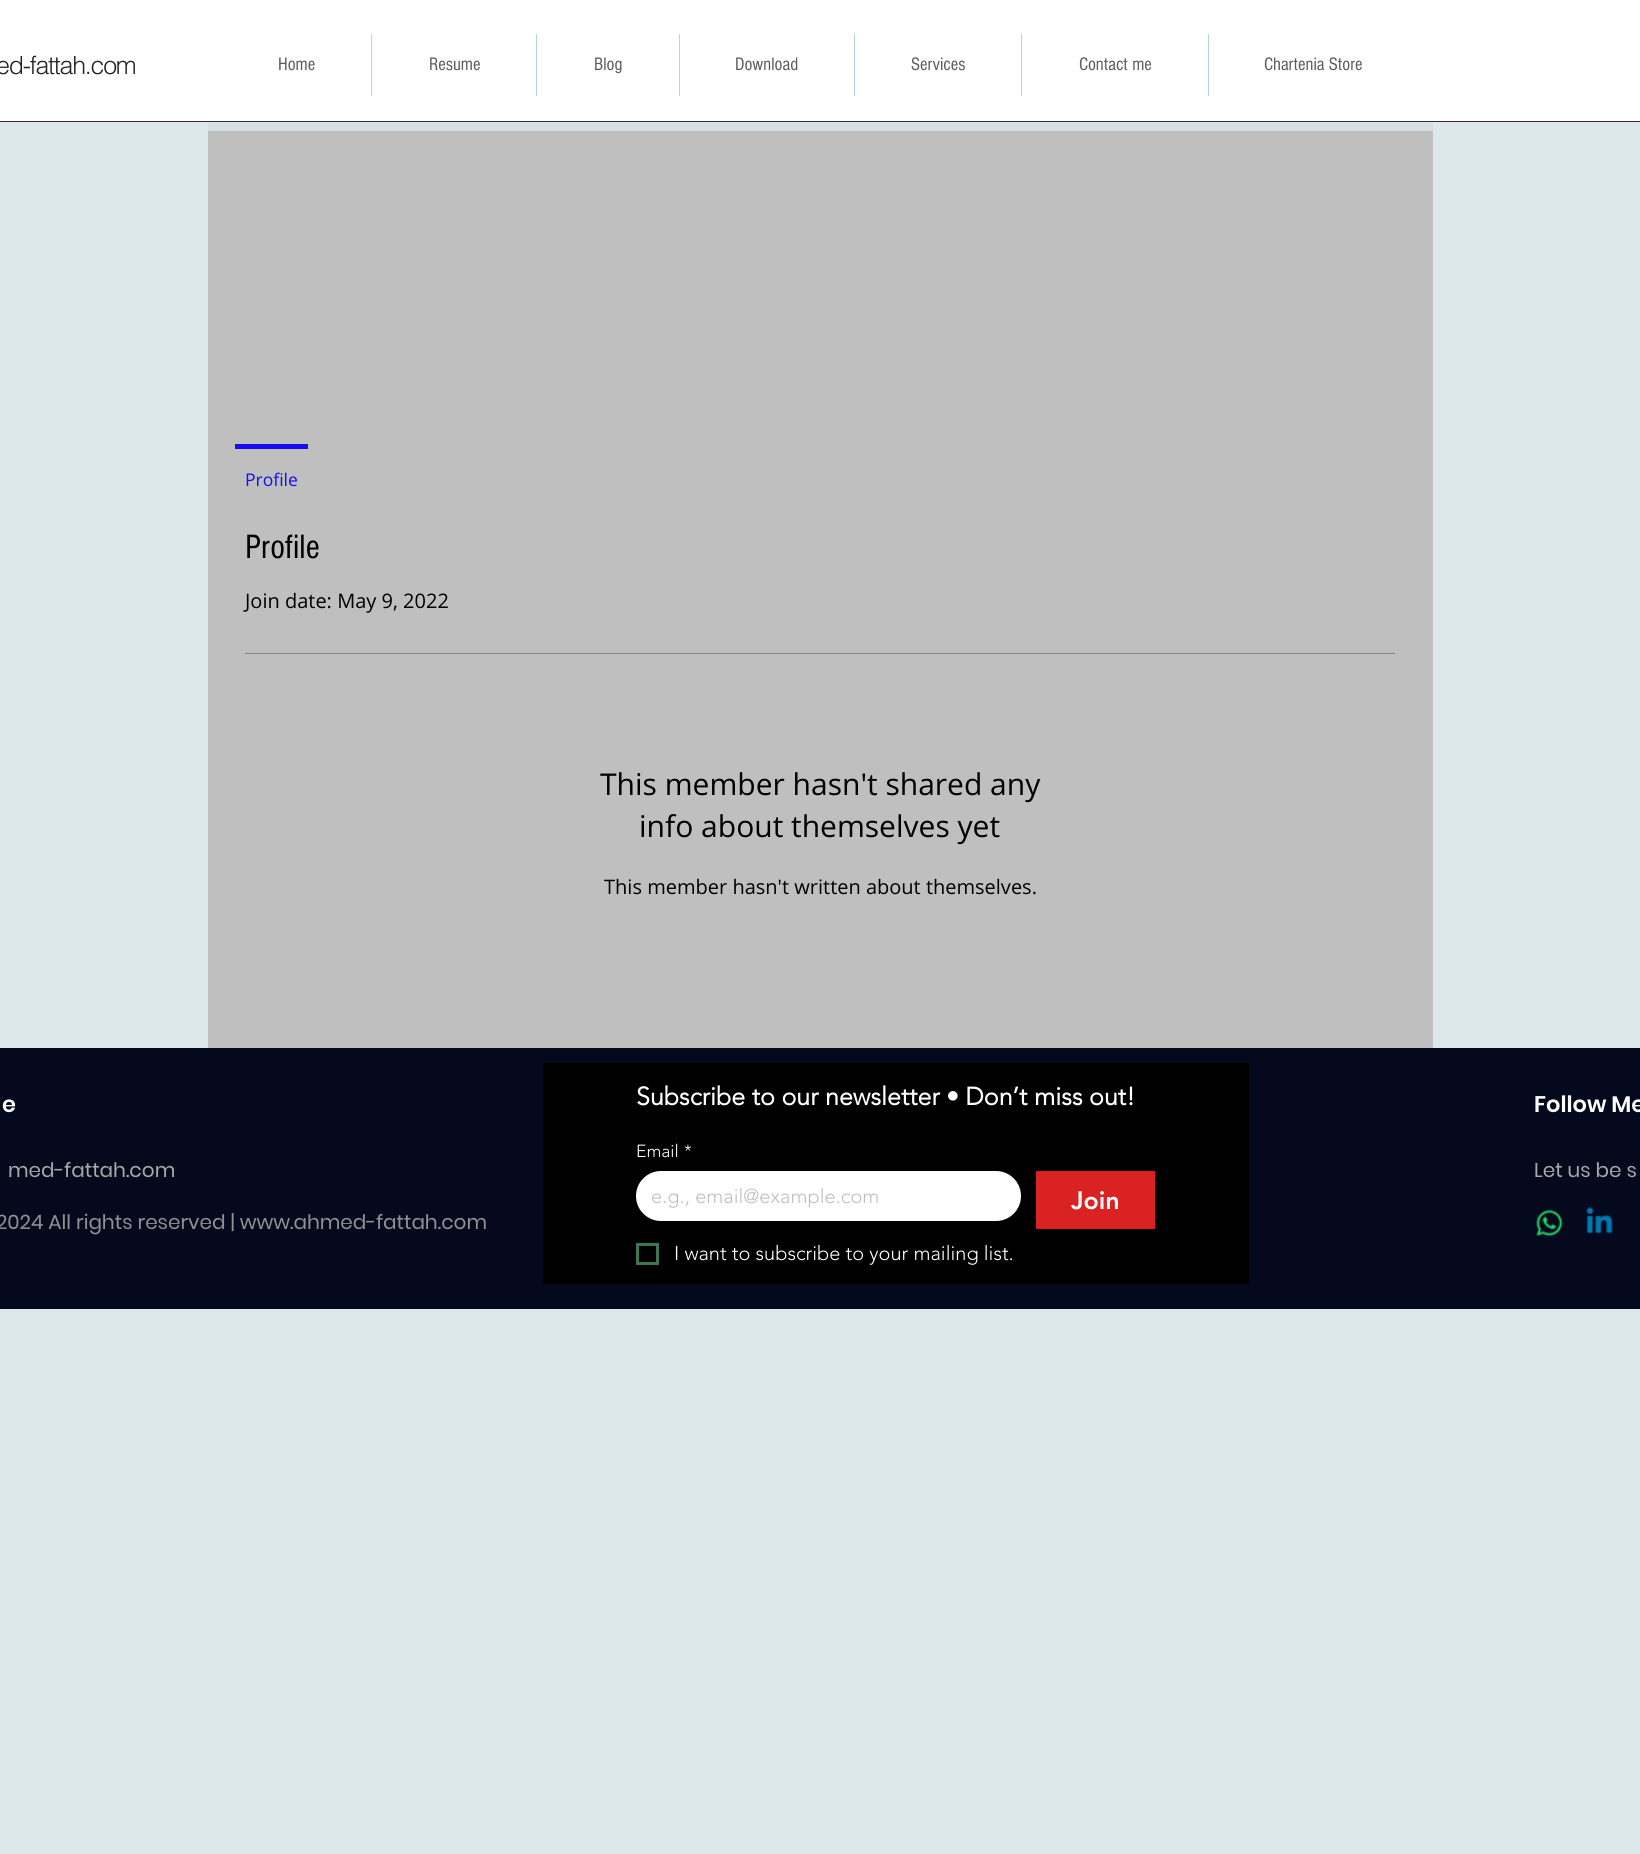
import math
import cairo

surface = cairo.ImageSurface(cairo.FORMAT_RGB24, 1640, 1854)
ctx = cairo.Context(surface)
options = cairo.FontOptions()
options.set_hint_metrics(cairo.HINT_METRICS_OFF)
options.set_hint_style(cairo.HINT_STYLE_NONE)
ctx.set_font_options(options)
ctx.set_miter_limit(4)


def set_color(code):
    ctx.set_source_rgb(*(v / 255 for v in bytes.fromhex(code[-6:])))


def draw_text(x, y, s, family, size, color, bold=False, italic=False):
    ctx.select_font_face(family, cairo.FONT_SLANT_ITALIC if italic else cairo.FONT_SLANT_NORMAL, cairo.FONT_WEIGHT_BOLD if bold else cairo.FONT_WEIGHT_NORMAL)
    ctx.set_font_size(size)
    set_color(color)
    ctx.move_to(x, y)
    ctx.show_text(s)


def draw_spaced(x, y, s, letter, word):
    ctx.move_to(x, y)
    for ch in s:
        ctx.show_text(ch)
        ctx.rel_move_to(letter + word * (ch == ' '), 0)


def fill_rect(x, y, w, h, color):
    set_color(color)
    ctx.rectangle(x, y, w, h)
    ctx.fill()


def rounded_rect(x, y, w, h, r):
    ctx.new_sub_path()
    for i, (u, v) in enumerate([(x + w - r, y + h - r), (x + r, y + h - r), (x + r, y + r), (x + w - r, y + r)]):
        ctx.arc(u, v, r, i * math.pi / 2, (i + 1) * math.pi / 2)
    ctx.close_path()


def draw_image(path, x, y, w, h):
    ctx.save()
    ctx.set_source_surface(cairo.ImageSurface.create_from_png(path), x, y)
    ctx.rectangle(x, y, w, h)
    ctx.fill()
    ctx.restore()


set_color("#dde8eb")
ctx.paint()
fill_rect(0, 121, 1640, 1, "#2f2e2e")
fill_rect(0, 0, 1640, 121, "#ffffff")
ctx.select_font_face("helvetica Light")
ctx.set_font_size(25)
set_color("#242323")
draw_spaced(-4, 74, "ed-fattah.com", -1.25, 0)
draw_text(278, 70, "Home", "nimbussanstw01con", 18.75, "#5c5c5c")
fill_rect(371, 34, 1, 62, "#b4d6e4")
draw_text(429, 70, "Resume", "nimbussanstw01con", 18.75, "#5c5c5c")
fill_rect(536, 34, 1, 62, "#b4d6e4")
draw_text(594, 70, "Blog", "nimbussanstw01con", 18.75, "#5c5c5c")
fill_rect(679, 34, 1, 62, "#b4d6e4")
draw_text(735, 70, "Download", "nimbussanstw01con", 18.75, "#5c5c5c")
fill_rect(854, 34, 1, 62, "#b4d6e4")
draw_text(911, 70, "Services", "nimbussanstw01con", 18.75, "#5c5c5c")
fill_rect(1021, 34, 1, 62, "#b4d6e4")
draw_text(1079, 70, "Contact me", "nimbussanstw01con", 18.75, "#5c5c5c")
fill_rect(1208, 34, 1, 62, "#b4d6e4")
draw_text(1264, 70, "Chartenia Store", "nimbussanstw01con", 18.75, "#5c5c5c")
fill_rect(208, 131, 1225, 917, "#bfbfbf")
fill_rect(235, 444, 73, 5, "#170df2")
draw_text(245, 486, "Profile", "Open Sans", 17.5, "#170df2")
fill_rect(208, 123, 1225, 8, "#d9dde4")
draw_text(245, 558, "Profile", "nimbussanstw01con", 35, "#000000")
draw_text(245, 608, "Join date: May 9, 2022", "Open Sans", 20, "#000000")
fill_rect(245, 653, 1150, 1, "#868686")
draw_text(600, 795, "This member hasn't shared any", "Open Sans", 30, "#000000")
draw_text(639, 837, "info about themselves yet", "Open Sans", 30, "#000000")
draw_text(604, 894, "This member hasn't written about themselves.", "Open Sans", 20, "#000000")
fill_rect(0, 1048, 1640, 261, "#04091e")
fill_rect(543, 1063, 706, 221, "#000000")
draw_text(636, 1105, "Subscribe to our newsletter • Don’t miss out!", "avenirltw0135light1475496", 25, "#ffffff", bold=True)
draw_text(636, 1157, "Email", "avenirltw0135light1475496 Light", 17.5, "#ffffff")
draw_text(684, 1157, "*", "avenirltw0135light1475496 Light", 17.5, "#ffffff")
rounded_rect(636, 1171, 385, 50, 25)
ctx.fill()
draw_text(651, 1203, "e.g., email@example.com", "avenirltw0135light1475496 Light", 20, "#bfbfbf")
fill_rect(1036, 1171, 119, 58, "#db2222")
draw_text(1071, 1209, "Join", "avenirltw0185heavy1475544 Black", 25, "#ffffff")
ctx.rectangle(637.5, 1244.5, 20, 19)
set_color("#3f7652")
ctx.set_line_width(3)
ctx.stroke()
draw_text(674, 1260, "I want to subscribe to your mailing list.", "avenirltw0135light1475496 Light", 20, "#ffffff")
draw_text(2, 1112, "e", "Poppins SemiBold", 22.5, "#ffffff")
draw_text(1534, 1112, "Follow Me", "Poppins SemiBold", 22.5, "#ffffff")
draw_text(8, 1177, "med-fattah.com", "Poppins", 20, "#a9a9a9")
draw_text(1534, 1177, "Let us be s", "Poppins", 20, "#a9a9a9")
draw_text(-4, 1229, "2024 All rights reserved | www.ahmed-fattah.com", "Poppins", 20, "#919191")
draw_image("assets/img1.png", 1536, 1209, 27, 28)
draw_image("assets/img2.png", 1586, 1207, 27, 27)
surface.write_to_png("output.png")
